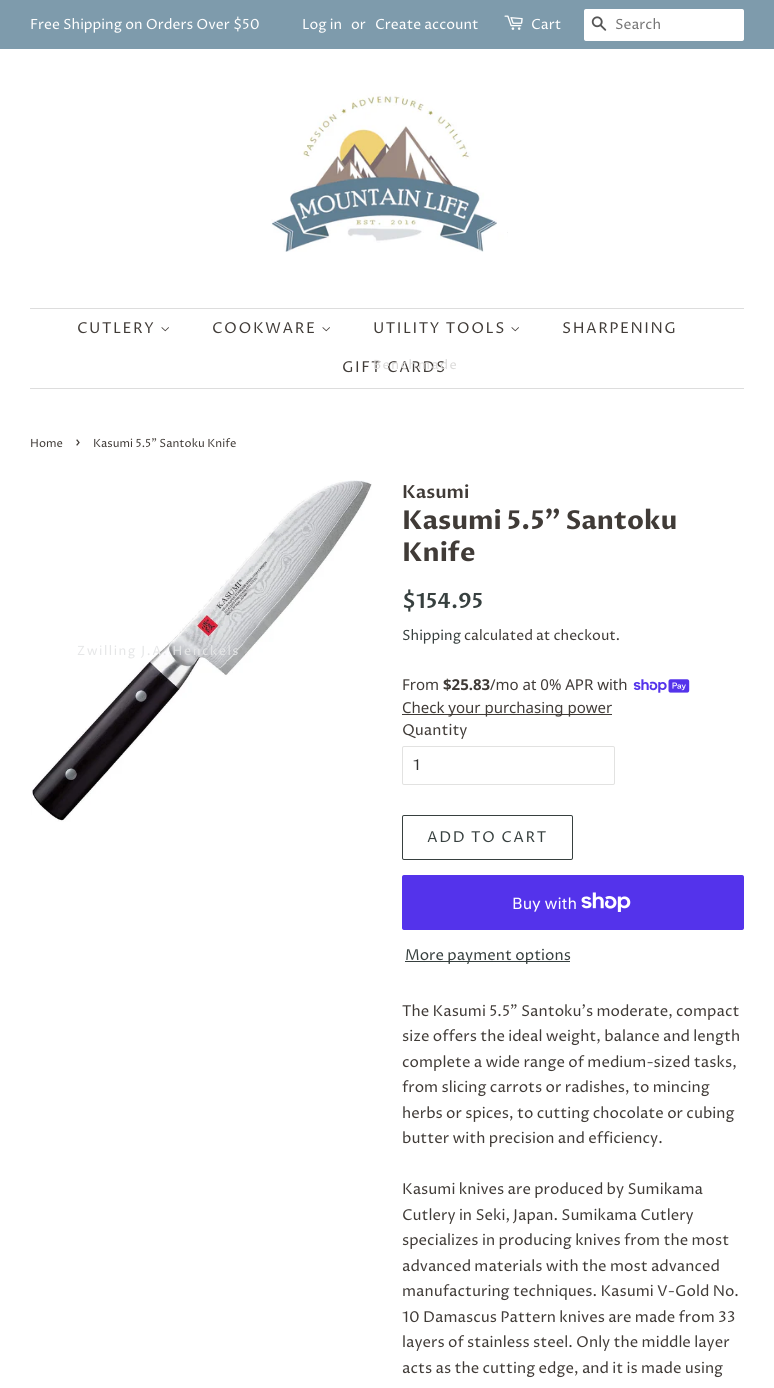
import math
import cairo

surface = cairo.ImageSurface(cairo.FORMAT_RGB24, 774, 1388)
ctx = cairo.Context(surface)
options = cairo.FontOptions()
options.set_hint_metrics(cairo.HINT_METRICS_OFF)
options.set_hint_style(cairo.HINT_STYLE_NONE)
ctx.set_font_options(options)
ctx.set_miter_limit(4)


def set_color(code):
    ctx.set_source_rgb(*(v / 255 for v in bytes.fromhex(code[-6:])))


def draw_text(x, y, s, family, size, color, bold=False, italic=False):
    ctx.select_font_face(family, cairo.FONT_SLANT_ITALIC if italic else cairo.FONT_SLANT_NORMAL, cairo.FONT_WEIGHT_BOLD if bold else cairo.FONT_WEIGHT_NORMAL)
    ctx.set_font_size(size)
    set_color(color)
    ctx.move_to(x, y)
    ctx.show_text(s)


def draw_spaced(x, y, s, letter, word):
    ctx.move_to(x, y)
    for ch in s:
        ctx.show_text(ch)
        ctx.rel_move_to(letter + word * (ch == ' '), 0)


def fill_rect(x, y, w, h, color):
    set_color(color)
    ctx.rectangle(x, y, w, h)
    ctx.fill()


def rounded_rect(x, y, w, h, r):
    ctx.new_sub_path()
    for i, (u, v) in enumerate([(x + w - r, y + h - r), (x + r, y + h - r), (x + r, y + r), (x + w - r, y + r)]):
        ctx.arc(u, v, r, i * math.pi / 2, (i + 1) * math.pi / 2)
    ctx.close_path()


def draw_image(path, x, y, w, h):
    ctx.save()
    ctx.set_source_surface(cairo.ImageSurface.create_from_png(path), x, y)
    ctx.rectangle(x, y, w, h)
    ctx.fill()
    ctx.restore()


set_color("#ffffff")
ctx.paint()
fill_rect(0, 0, 774, 49, "#7e9bac")
draw_text(30, 29, "Free Shipping on Orders Over $50", "Proza Libre", 14, "#ffffff")
draw_text(302, 29, "Log in", "Proza Libre", 14, "#ffffff")
draw_text(351, 29, "or", "Proza Libre", 14, "#ffffff")
draw_text(375, 29, "Create account", "Proza Libre", 14, "#ffffff")
draw_image("assets/img1.png", 504, 15, 19, 15)
draw_text(531, 29, "Cart", "Proza Libre", 14, "#ffffff")
rounded_rect(584, 9, 160, 32, 2)
ctx.fill()
draw_image("assets/img2.png", 591, 16, 16, 15)
draw_text(615, 29, "Search", "Proza Libre", 14, "#757575")
draw_image("assets/img3.png", 271, 93, 237, 159)
fill_rect(30, 308, 714, 1, "#dddddd")
fill_rect(30, 388, 714, 1, "#dddddd")
ctx.set_font_size(15)
set_color("#403b37")
draw_spaced(77, 333, "CUTLERY", 1.5, 0)
draw_image("assets/img4.png", 161, 327, 8, 5)
draw_image("assets/img5.png", 31, 480, 341, 342)
ctx.set_font_size(12.75)
set_color("#e5e6e7")
draw_spaced(77, 655, "Zwilling J.A. Henckels", 1.5, 0)
ctx.set_font_size(15)
set_color("#403b37")
draw_spaced(212, 333, "COOKWARE", 1.5, 0)
draw_image("assets/img4.png", 322, 327, 8, 5)
draw_spaced(373, 333, "UTILITY TOOLS", 1.5, 0)
draw_image("assets/img4.png", 511, 327, 8, 5)
draw_spaced(342, 372, "GIFT CARDS", 1.5, 0)
ctx.set_font_size(12.75)
set_color("#dbdad9")
draw_spaced(373, 369, "Benchmade", 1.5, 0)
ctx.set_font_size(15)
set_color("#403b37")
draw_spaced(562, 333, "SHARPENING", 1.5, 0)
draw_text(30, 447, "Home", "Proza Libre", 11.25, "#403b37")
draw_text(75, 447, "›", "Proza Libre", 16, "#403b37")
draw_text(93, 447, "Kasumi 5.5\" Santoku Knife", "Proza Libre", 11.25, "#403b37")
draw_text(402, 498, "Kasumi", "Proza Libre SemiBold", 18, "#403b37")
draw_text(402, 529, "Kasumi 5.5\" Santoku", "Proza Libre", 26, "#403b37", bold=True)
draw_text(402, 561, "Knife", "Proza Libre", 26, "#403b37", bold=True)
draw_text(402, 608, "$154.95", "Proza Libre SemiBold", 21, "#37403f")
draw_text(402, 640, "Shipping", "Proza Libre", 14, "#37403f")
draw_text(464, 640, "calculated at checkout.", "Proza Libre", 14, "#403b37")
draw_text(402, 690, "From", "Noto Sans", 15, "#403b37")
draw_text(443, 690, "$25.83", "Noto Sans", 15, "#403b37", bold=True)
draw_text(490, 690, "/mo at 0% APR with", "Noto Sans", 15, "#403b37")
draw_image("assets/img6.png", 633, 679, 57, 14)
fill_rect(402, 714, 210, 1, "#403b37")
draw_text(402, 713, "Check your purchasing power", "Noto Sans", 15, "#403b37")
draw_text(402, 735, "Quantity", "Proza Libre", 15, "#403b37")
rounded_rect(402.5, 746.5, 212, 38, 1.5)
set_color("#e2e2e1")
ctx.set_line_width(1)
ctx.stroke()
draw_text(413, 770, "1", "Proza Libre", 15, "#333333")
rounded_rect(402.5, 815.5, 170, 44, 1.5)
set_color("#37403f")
ctx.stroke()
draw_spaced(427, 842, "ADD TO CART", 1.5, 0)
set_color("#5433eb")
rounded_rect(402, 875, 342, 55, 2)
ctx.fill()
draw_text(512, 909, "Buy with", "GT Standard", 16, "#ffffff")
draw_image("assets/img7.png", 581, 892, 50, 20)
fill_rect(405, 961, 165, 1, "#37403f")
draw_text(405, 960, "More payment options", "Proza Libre", 15, "#37403f")
draw_text(402, 1016, "The Kasumi 5.5\" Santoku’s moderate, compact", "Proza Libre", 15, "#403b37")
draw_text(402, 1041, "size offers the ideal weight, balance and length", "Proza Libre", 15, "#403b37")
draw_text(402, 1067, "complete a wide range of medium-sized tasks,", "Proza Libre", 15, "#403b37")
draw_text(402, 1092, "from slicing carrots or radishes, to mincing", "Proza Libre", 15, "#403b37")
draw_text(402, 1118, "herbs or spices, to cutting chocolate or cubing", "Proza Libre", 15, "#403b37")
draw_text(402, 1143, "butter with precision and efficiency.", "Proza Libre", 15, "#403b37")
draw_text(402, 1194, "Kasumi knives are produced by Sumikama", "Proza Libre", 15, "#403b37")
draw_text(402, 1220, "Cutlery in Seki, Japan. Sumikama Cutlery", "Proza Libre", 15, "#403b37")
draw_text(402, 1245, "specializes in producing knives from the most", "Proza Libre", 15, "#403b37")
draw_text(402, 1271, "advanced materials with the most advanced", "Proza Libre", 15, "#403b37")
draw_text(402, 1296, "manufacturing techniques. Kasumi V-Gold No.", "Proza Libre", 15, "#403b37")
draw_text(402, 1322, "10 Damascus Pattern knives are made from 33", "Proza Libre", 15, "#403b37")
draw_text(402, 1347, "layers of stainless steel. Only the middle layer", "Proza Libre", 15, "#403b37")
draw_text(402, 1373, "acts as the cutting edge, and it is made using", "Proza Libre", 15, "#403b37")
surface.write_to_png("output.png")
